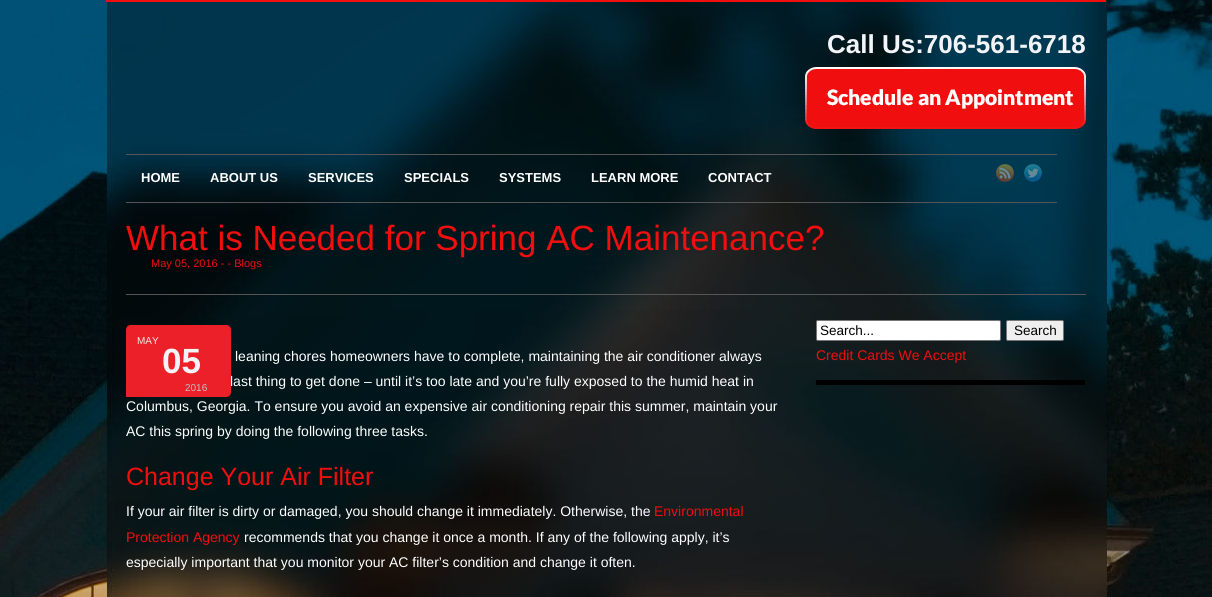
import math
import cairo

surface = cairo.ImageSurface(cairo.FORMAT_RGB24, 1212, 597)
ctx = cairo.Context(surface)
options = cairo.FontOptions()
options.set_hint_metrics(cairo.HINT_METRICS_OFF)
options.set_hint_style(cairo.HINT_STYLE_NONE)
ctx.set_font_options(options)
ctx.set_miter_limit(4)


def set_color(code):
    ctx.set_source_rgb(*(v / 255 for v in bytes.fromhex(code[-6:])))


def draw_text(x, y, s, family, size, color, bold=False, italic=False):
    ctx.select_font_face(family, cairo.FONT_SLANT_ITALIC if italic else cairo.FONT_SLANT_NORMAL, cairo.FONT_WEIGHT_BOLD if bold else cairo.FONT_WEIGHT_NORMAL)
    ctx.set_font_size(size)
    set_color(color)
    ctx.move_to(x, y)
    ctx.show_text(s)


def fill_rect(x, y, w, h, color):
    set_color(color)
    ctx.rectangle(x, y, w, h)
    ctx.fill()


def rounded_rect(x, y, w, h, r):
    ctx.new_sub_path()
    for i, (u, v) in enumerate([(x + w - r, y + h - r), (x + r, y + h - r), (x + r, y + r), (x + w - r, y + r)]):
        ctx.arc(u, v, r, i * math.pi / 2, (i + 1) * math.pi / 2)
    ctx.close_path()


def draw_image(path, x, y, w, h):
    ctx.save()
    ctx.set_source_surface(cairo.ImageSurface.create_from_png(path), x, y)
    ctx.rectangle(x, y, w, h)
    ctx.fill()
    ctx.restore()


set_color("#ffffff")
ctx.paint()
draw_image("assets/img1.png", 0, 0, 1212, 597)
fill_rect(106, 0, 1000, 2, "#f00e0e")
draw_text(827, 53, "Call Us:706-561-6718", "Liberation Sans", 26, "#f2f4f7", bold=True)
draw_image("assets/img2.png", 805, 67, 281, 62)
fill_rect(126, 154, 931, 1, "#555555")
fill_rect(126, 202, 931, 1, "#555555")
draw_text(141, 182, "HOME", "Liberation Sans", 13, "#ffffff", bold=True)
draw_text(210, 182, "ABOUT US", "Liberation Sans", 13, "#ffffff", bold=True)
draw_text(308, 182, "SERVICES", "Liberation Sans", 13, "#ffffff", bold=True)
draw_text(404, 182, "SPECIALS", "Liberation Sans", 13, "#ffffff", bold=True)
draw_text(499, 182, "SYSTEMS", "Liberation Sans", 13, "#ffffff", bold=True)
draw_text(591, 182, "LEARN MORE", "Liberation Sans", 13, "#ffffff", bold=True)
draw_text(708, 182, "CONTACT", "Liberation Sans", 13, "#ffffff", bold=True)
draw_image("assets/img3.png", 996, 164, 18, 18)
draw_image("assets/img4.png", 1024, 164, 18, 18)
fill_rect(126, 294, 960, 1, "#555555")
draw_text(126, 250, "What is Needed for Spring AC Maintenance?", "Liberation Sans", 35, "#f00e0e")
draw_text(151, 267, "May 05, 2016 - - Blogs", "Liberation Sans", 11, "#f00e0e")
draw_text(230, 386, "last thing to get done – until it’s too late and you’re fully exposed to the humid heat in", "Liberation Sans", 14, "#ffffff")
set_color("#ec2028")
ctx.new_path()
ctx.move_to(131, 325)
ctx.line_to(226, 325)
ctx.curve_to(229, 325, 231, 327, 231, 330)
ctx.line_to(231, 392)
ctx.curve_to(231, 395, 229, 397, 226, 397)
ctx.line_to(126, 397)
ctx.line_to(126, 330)
ctx.curve_to(126, 327, 128, 325, 131, 325)
ctx.close_path()
ctx.fill()
draw_text(137, 344, "MAY", "Liberation Sans", 10, "#ececec")
draw_text(162, 373, "05", "Liberation Sans", 35, "#f2f4f7", bold=True)
draw_text(185, 391, "2016", "Liberation Sans", 10, "#c2c2c2")
draw_text(235, 361, "leaning chores homeowners have to complete, maintaining the air conditioner always", "Liberation Sans", 14, "#ffffff")
draw_text(126, 411, "Columbus, Georgia. To ensure you avoid an expensive air conditioning repair this summer, maintain your", "Liberation Sans", 14, "#ffffff")
draw_text(126, 436, "AC this spring by doing the following three tasks.", "Liberation Sans", 14, "#ffffff")
draw_text(126, 485, "Change Your Air Filter", "Liberation Sans", 25, "#f00e0e")
draw_text(126, 516, "If your air filter is dirty or damaged, you should change it immediately. Otherwise, the", "Liberation Sans", 14, "#ffffff")
draw_text(654, 516, "Environmental", "Liberation Sans", 14, "#f00e0e")
draw_text(126, 542, "Protection Agency", "Liberation Sans", 14, "#f00e0e")
draw_text(244, 542, "recommends that you change it once a month. If any of the following apply, it’s", "Liberation Sans", 14, "#ffffff")
draw_text(126, 567, "especially important that you monitor your AC filter’s condition and change it often.", "Liberation Sans", 14, "#ffffff")
rounded_rect(816.5, 320.5, 184, 20, 1.5)
ctx.fill_preserve()
set_color("#767676")
ctx.set_line_width(1)
ctx.stroke()
draw_text(820, 335, "Search...", "Liberation Sans", 13.5, "#000000")
set_color("#efefef")
rounded_rect(1006.5, 320.5, 57, 20, 1.5)
ctx.fill_preserve()
set_color("#767676")
ctx.stroke()
draw_text(1014, 335, "Search", "Liberation Sans", 13.5, "#000000")
draw_text(816, 360, "Credit Cards We Accept", "Liberation Sans", 14, "#f00e0e")
fill_rect(816, 380, 269, 5, "#000000")
surface.write_to_png("output.png")
